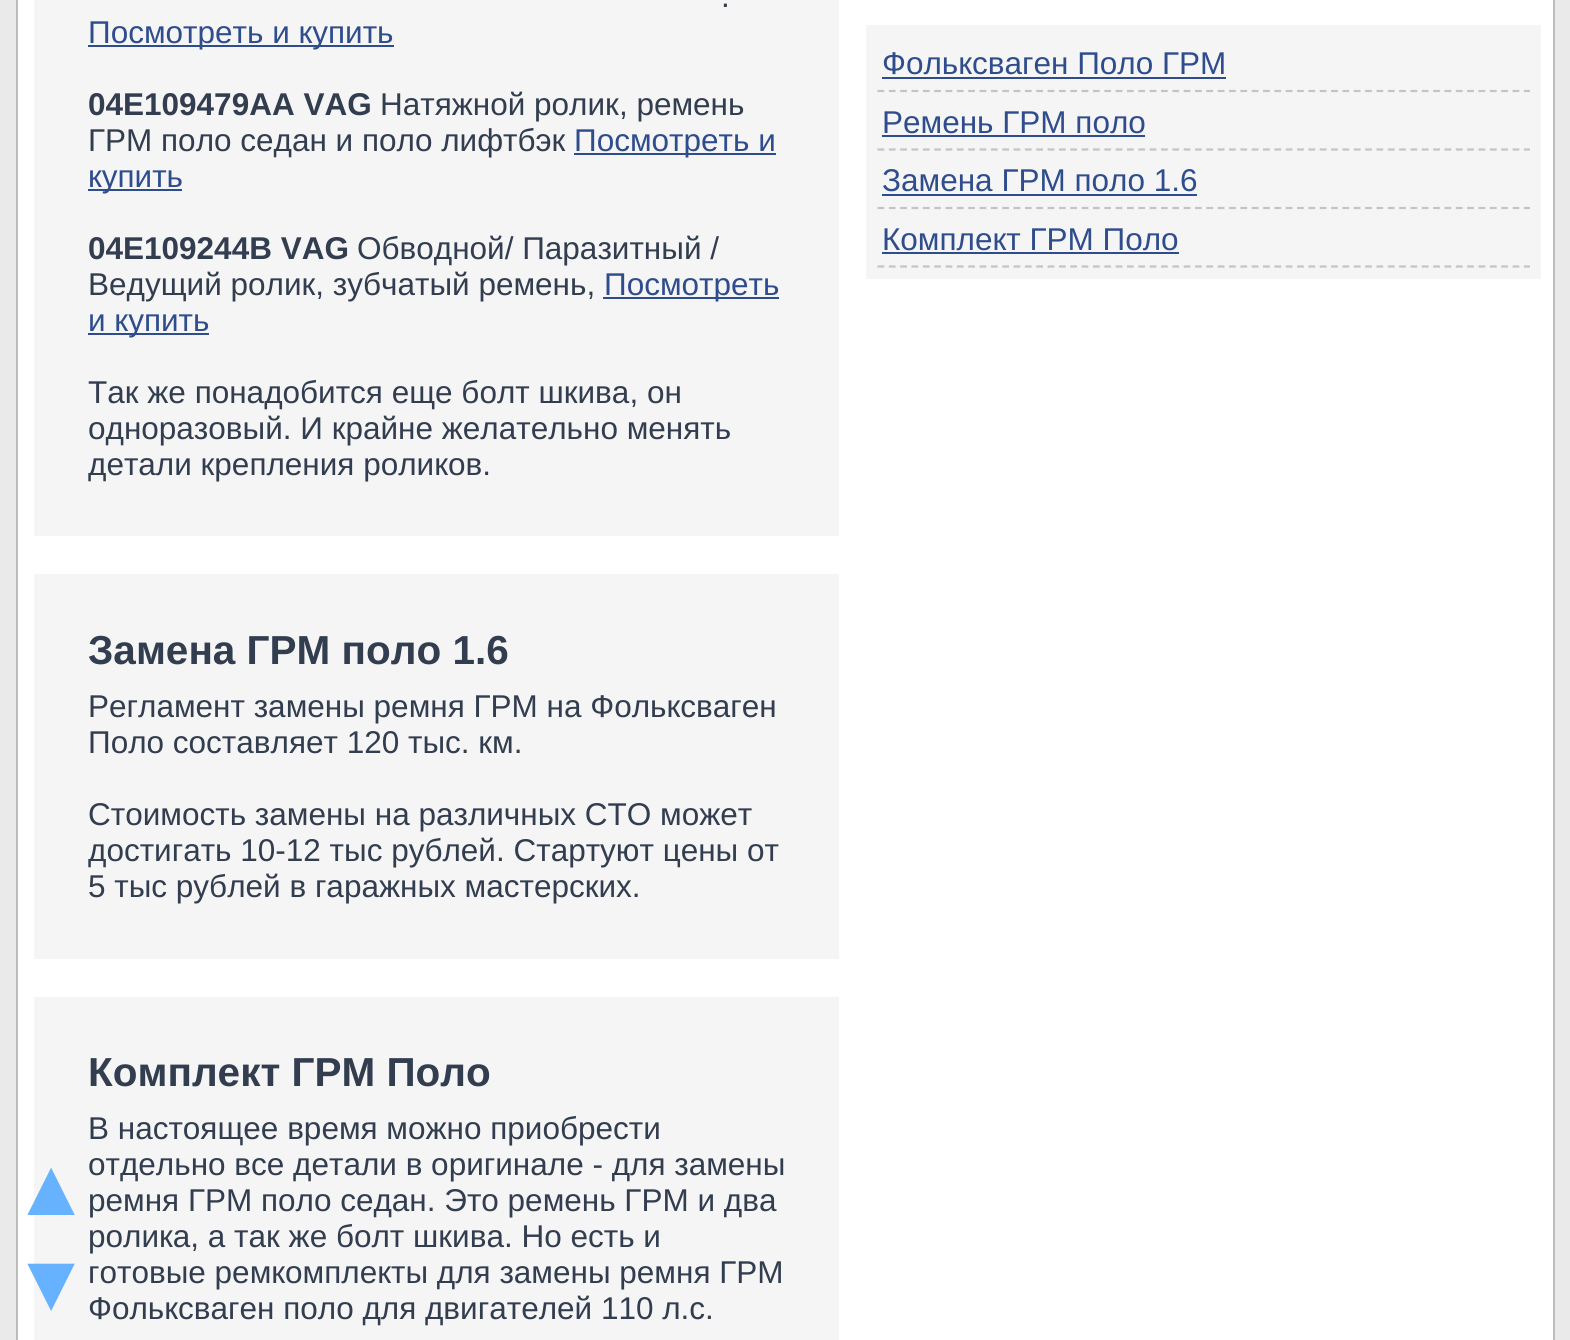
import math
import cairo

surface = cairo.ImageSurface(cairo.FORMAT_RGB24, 1570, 1340)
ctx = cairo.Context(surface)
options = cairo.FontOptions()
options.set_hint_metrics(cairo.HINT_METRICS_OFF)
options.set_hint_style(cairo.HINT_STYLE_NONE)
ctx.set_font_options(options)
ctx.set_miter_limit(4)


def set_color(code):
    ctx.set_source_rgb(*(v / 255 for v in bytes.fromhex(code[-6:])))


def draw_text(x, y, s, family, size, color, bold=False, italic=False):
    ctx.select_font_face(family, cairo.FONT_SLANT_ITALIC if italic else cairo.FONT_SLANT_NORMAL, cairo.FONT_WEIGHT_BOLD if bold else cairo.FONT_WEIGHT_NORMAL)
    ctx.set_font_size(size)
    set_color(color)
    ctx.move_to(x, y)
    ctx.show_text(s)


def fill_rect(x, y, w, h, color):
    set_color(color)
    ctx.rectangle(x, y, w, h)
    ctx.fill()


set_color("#eaeaea")
ctx.paint()
fill_rect(18, 0, 1535, 1340, "#ffffff")
fill_rect(34, 997, 805, 343, "#f5f5f5")
draw_text(11, 1215, "▲", "Liberation Sans", 81, "#66b2ff")
draw_text(11, 1310, "▼", "Liberation Sans", 81, "#66b2ff")
fill_rect(1553, 0, 2, 1340, "#bcbcbc")
fill_rect(16, 0, 2, 1340, "#bcbcbc")
fill_rect(34, 0, 805, 536, "#f5f5f5")
draw_text(721, 7, ".", "Liberation Sans", 31.5, "#323d4f")
fill_rect(88, 45, 306, 2, "#2f4d8d")
draw_text(88, 43, "Посмотреть и купить", "Liberation Sans", 31.5, "#2f4d8d")
draw_text(88, 115, "04E109479AA VAG", "Liberation Sans", 31.5, "#323d4f", bold=True)
draw_text(380, 115, "Натяжной ролик, ремень", "Liberation Sans", 31.5, "#323d4f")
draw_text(88, 151, "ГРМ поло седан и поло лифтбэк", "Liberation Sans", 31.5, "#323d4f")
fill_rect(574, 153, 202, 2, "#2f4d8d")
draw_text(574, 151, "Посмотреть и", "Liberation Sans", 31.5, "#2f4d8d")
fill_rect(88, 189, 94, 2, "#2f4d8d")
draw_text(88, 187, "купить", "Liberation Sans", 31.5, "#2f4d8d")
draw_text(88, 259, "04E109244B VAG", "Liberation Sans", 31.5, "#323d4f", bold=True)
draw_text(357, 259, "Обводной/ Паразитный /", "Liberation Sans", 31.5, "#323d4f")
draw_text(88, 295, "Ведущий ролик, зубчатый ремень,", "Liberation Sans", 31.5, "#323d4f")
fill_rect(603, 297, 176, 2, "#2f4d8d")
draw_text(604, 295, "Посмотреть", "Liberation Sans", 31.5, "#2f4d8d")
fill_rect(88, 333, 121, 2, "#2f4d8d")
draw_text(88, 331, "и купить", "Liberation Sans", 31.5, "#2f4d8d")
draw_text(88, 403, "Так же понадобится еще болт шкива, он", "Liberation Sans", 31.5, "#323d4f")
draw_text(88, 439, "одноразовый. И крайне желательно менять", "Liberation Sans", 31.5, "#323d4f")
draw_text(88, 475, "детали крепления роликов.", "Liberation Sans", 31.5, "#323d4f")
fill_rect(34, 574, 805, 385, "#f5f5f5")
draw_text(88, 664, "Замена ГРМ поло 1.6", "Liberation Sans", 40.5, "#323d4f", bold=True)
draw_text(88, 717, "Регламент замены ремня ГРМ на Фольксваген", "Liberation Sans", 31.5, "#323d4f")
draw_text(88, 753, "Поло составляет 120 тыс. км.", "Liberation Sans", 31.5, "#323d4f")
draw_text(88, 825, "Стоимость замены на различных СТО может", "Liberation Sans", 31.5, "#323d4f")
draw_text(88, 861, "достигать 10-12 тыс рублей. Стартуют цены от", "Liberation Sans", 31.5, "#323d4f")
draw_text(88, 897, "5 тыс рублей в гаражных мастерских.", "Liberation Sans", 31.5, "#323d4f")
draw_text(88, 1086, "Комплект ГРМ Поло", "Liberation Sans", 40.5, "#323d4f", bold=True)
draw_text(88, 1139, "В настоящее время можно приобрести", "Liberation Sans", 31.5, "#323d4f")
draw_text(88, 1175, "отдельно все детали в оригинале - для замены", "Liberation Sans", 31.5, "#323d4f")
draw_text(88, 1211, "ремня ГРМ поло седан. Это ремень ГРМ и два", "Liberation Sans", 31.5, "#323d4f")
draw_text(88, 1247, "ролика, а так же болт шкива. Но есть и", "Liberation Sans", 31.5, "#323d4f")
draw_text(88, 1283, "готовые ремкомплекты для замены ремня ГРМ", "Liberation Sans", 31.5, "#323d4f")
draw_text(88, 1319, "Фольксваген поло для двигателей 110 л.с.", "Liberation Sans", 31.5, "#323d4f")
fill_rect(866, 25, 675, 254, "#f5f5f5")
ctx.new_path()
ctx.move_to(877.5, 91)
ctx.line_to(1530, 91)
set_color("#c4c4c4")
ctx.set_line_width(2.2)
ctx.set_dash([6.75, 4.59])
ctx.stroke()
draw_text(882, 74, "Фольксваген Поло ГРМ", "Liberation Sans", 31.5, "#2f4d8d")
fill_rect(882, 77, 344, 2, "#2f4d8d")
ctx.new_path()
ctx.move_to(877.5, 149.5)
ctx.line_to(1530, 149.5)
set_color("#c4c4c4")
ctx.stroke()
draw_text(882, 133, "Ремень ГРМ поло", "Liberation Sans", 31.5, "#2f4d8d")
fill_rect(882, 135, 263, 2, "#2f4d8d")
ctx.new_path()
ctx.move_to(877.5, 208)
ctx.line_to(1530, 208)
set_color("#c4c4c4")
ctx.stroke()
draw_text(882, 191, "Замена ГРМ поло 1.6", "Liberation Sans", 31.5, "#2f4d8d")
fill_rect(882, 194, 315, 2, "#2f4d8d")
ctx.new_path()
ctx.move_to(877.5, 266.5)
ctx.line_to(1530, 266.5)
set_color("#c4c4c4")
ctx.stroke()
draw_text(882, 250, "Комплект ГРМ Поло", "Liberation Sans", 31.5, "#2f4d8d")
fill_rect(882, 252, 297, 2, "#2f4d8d")
surface.write_to_png("output.png")
